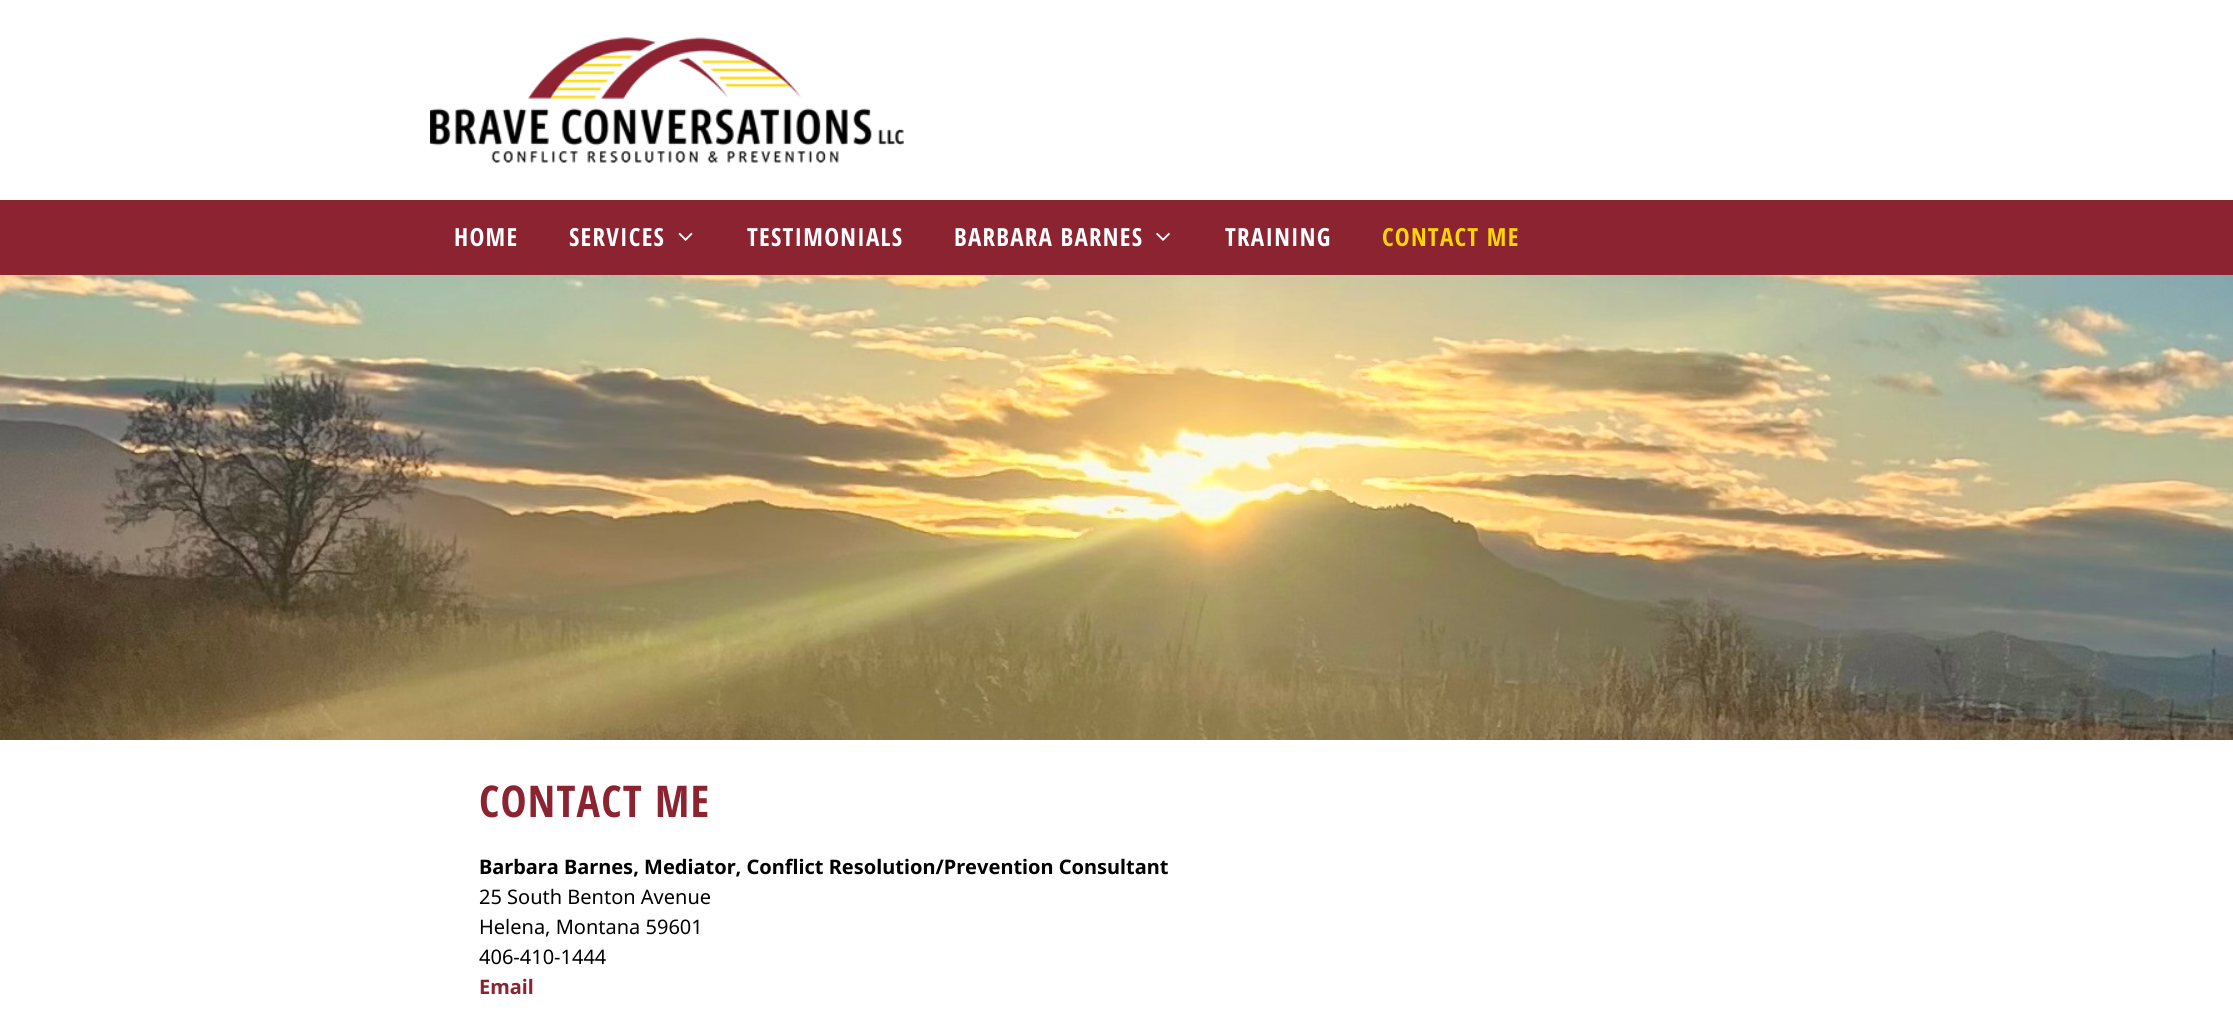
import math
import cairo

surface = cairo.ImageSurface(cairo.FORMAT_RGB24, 2233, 1027)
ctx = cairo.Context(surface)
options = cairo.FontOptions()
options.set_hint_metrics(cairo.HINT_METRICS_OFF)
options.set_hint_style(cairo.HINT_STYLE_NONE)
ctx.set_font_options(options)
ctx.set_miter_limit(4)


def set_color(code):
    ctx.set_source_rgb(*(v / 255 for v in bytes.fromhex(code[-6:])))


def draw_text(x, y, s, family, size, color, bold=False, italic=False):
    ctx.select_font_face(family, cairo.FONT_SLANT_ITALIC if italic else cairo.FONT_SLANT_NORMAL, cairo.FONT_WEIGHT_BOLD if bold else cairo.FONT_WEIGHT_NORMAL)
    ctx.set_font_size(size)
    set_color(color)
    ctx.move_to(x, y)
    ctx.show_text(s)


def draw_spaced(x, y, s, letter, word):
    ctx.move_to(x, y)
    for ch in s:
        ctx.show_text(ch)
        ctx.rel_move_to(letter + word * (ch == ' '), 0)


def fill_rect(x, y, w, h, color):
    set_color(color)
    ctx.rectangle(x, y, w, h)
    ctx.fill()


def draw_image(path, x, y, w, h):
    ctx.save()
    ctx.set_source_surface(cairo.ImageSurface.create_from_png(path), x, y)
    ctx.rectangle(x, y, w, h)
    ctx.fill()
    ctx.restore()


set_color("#ffffff")
ctx.paint()
draw_image("assets/img1.png", 430, 37, 474, 126)
fill_rect(0, 200, 2233, 75, "#8b2331")
ctx.select_font_face("Open Sans Condensed", cairo.FONT_SLANT_NORMAL, cairo.FONT_WEIGHT_BOLD)
ctx.set_font_size(25)
set_color("#ffffff")
draw_spaced(454, 246, "HOME", 1.25, 0)
draw_spaced(569, 246, "SERVICES", 1.25, 0)
draw_image("assets/img2.png", 678, 232, 15, 9)
draw_spaced(747, 246, "TESTIMONIALS", 1.25, 0)
draw_spaced(954, 246, "BARBARA BARNES", 1.25, 0)
draw_image("assets/img3.png", 1156, 232, 14, 9)
draw_spaced(1225, 246, "TRAINING", 1.25, 0)
set_color("#ffd600")
draw_spaced(1382, 246, "CONTACT ME", 1.25, 0)
draw_image("assets/img4.png", 0, 275, 2233, 465)
ctx.set_font_size(43.75)
set_color("#8b2331")
draw_spaced(479, 817, "CONTACT ME", 1.25, 0)
draw_text(479, 874, "Barbara Barnes, Mediator, Conflict Resolution/Prevention Consultant", "Noto Sans", 20, "#000000", bold=True)
draw_text(479, 904, "25 South Benton Avenue", "Noto Sans", 20, "#000000")
draw_text(479, 934, "Helena, Montana 59601", "Noto Sans", 20, "#000000")
draw_text(479, 964, "406-410-1444", "Noto Sans", 20, "#000000")
draw_text(479, 994, "Email", "Noto Sans", 20, "#8b2331", bold=True)
surface.write_to_png("output.png")
